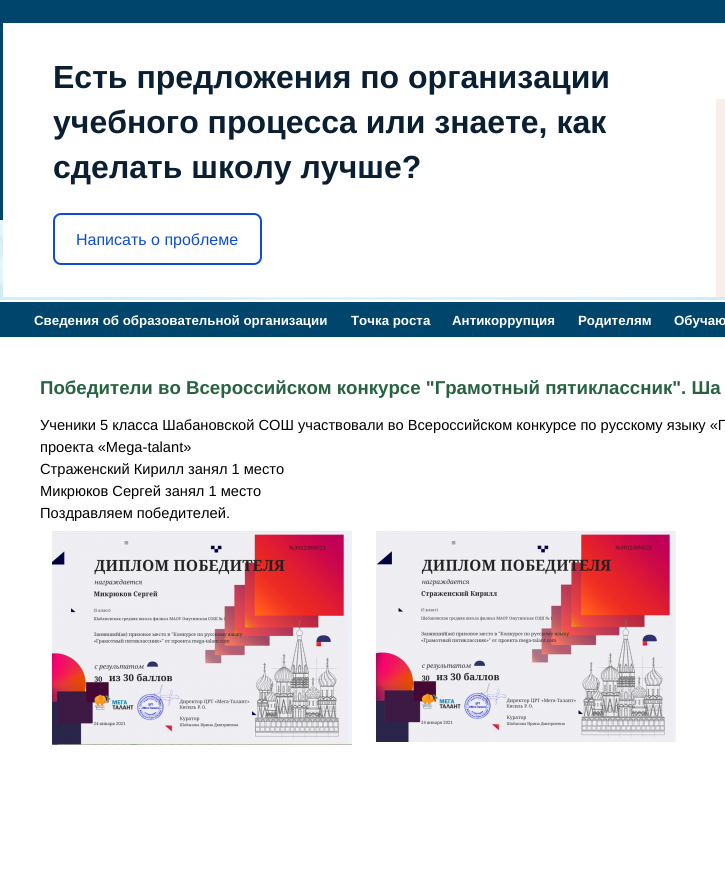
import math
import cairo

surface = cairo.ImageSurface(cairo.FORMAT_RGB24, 725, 881)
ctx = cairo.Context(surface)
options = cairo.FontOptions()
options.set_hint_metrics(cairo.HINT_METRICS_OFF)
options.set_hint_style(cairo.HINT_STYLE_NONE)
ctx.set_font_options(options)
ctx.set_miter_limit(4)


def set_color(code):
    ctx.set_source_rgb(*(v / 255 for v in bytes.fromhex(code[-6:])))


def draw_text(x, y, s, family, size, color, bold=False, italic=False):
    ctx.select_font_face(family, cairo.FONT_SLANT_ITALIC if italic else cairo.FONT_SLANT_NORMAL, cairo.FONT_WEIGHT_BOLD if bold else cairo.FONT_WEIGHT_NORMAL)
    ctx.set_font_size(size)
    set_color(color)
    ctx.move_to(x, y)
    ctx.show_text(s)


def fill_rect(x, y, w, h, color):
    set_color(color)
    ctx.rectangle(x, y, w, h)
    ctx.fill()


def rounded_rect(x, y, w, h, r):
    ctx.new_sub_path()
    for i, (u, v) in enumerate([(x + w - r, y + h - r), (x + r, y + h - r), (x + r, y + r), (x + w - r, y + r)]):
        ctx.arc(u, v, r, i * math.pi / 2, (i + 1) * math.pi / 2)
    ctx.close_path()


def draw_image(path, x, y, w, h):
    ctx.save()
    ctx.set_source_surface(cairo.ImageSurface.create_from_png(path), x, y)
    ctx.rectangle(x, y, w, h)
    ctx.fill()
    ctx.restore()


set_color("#ffffff")
ctx.paint()
draw_image("assets/img1.png", 0, 220, 725, 80)
fill_rect(0, 0, 725, 220, "#00456b")
fill_rect(3, 23, 713, 274, "#ffffff")
draw_text(53, 88, "Есть предложения по организации", "Liberation Sans", 32, "#0b1f33", bold=True)
draw_text(53, 133, "учебного процесса или знаете, как", "Liberation Sans", 32, "#0b1f33", bold=True)
draw_text(53, 178, "сделать школу лучше?", "Liberation Sans", 32, "#0b1f33", bold=True)
rounded_rect(54, 214, 207, 50, 7)
set_color("#0d4cd3")
ctx.stroke()
draw_text(76, 245, "Написать о проблеме", "Liberation Sans", 16, "#0d4cd3")
fill_rect(716, 99, 9, 198, "#f8efec")
fill_rect(716, 23, 9, 76, "#ffffff")
fill_rect(0, 302, 725, 35, "#00456b")
draw_text(34, 325, "Сведения об образовательной организации", "Liberation Sans", 13.3, "#ffffff", bold=True)
draw_text(351, 325, "Точка роста", "Liberation Sans", 13.3, "#ffffff", bold=True)
draw_text(452, 325, "Антикоррупция", "Liberation Sans", 13.3, "#ffffff", bold=True)
draw_text(578, 325, "Родителям", "Liberation Sans", 13.3, "#ffffff", bold=True)
draw_text(674, 325, "Обучаю", "Liberation Sans", 13.3, "#ffffff", bold=True)
draw_text(40, 394, "Победители во Всероссийском конкурсе \"Грамотный пятиклассник\". Ша", "Liberation Sans", 18.65, "#276341", bold=True)
draw_text(40, 430, "Ученики 5 класса Шабановской СОШ участвовали во Всероссийском конкурсе по русскому языку «Г", "Liberation Sans", 14.65, "#000000")
draw_text(40, 452, "проекта «Mega-talant»", "Liberation Sans", 14.65, "#000000")
draw_text(40, 474, "Страженский Кирилл занял 1 место", "Liberation Sans", 14.65, "#000000")
draw_text(40, 496, "Микрюков Сергей занял 1 место", "Liberation Sans", 14.65, "#000000")
draw_text(40, 518, "Поздравляем победителей.", "Liberation Sans", 14.65, "#000000")
draw_image("assets/img2.png", 52, 531, 300, 214)
draw_image("assets/img3.png", 376, 531, 300, 211)
surface.write_to_png("output.png")
